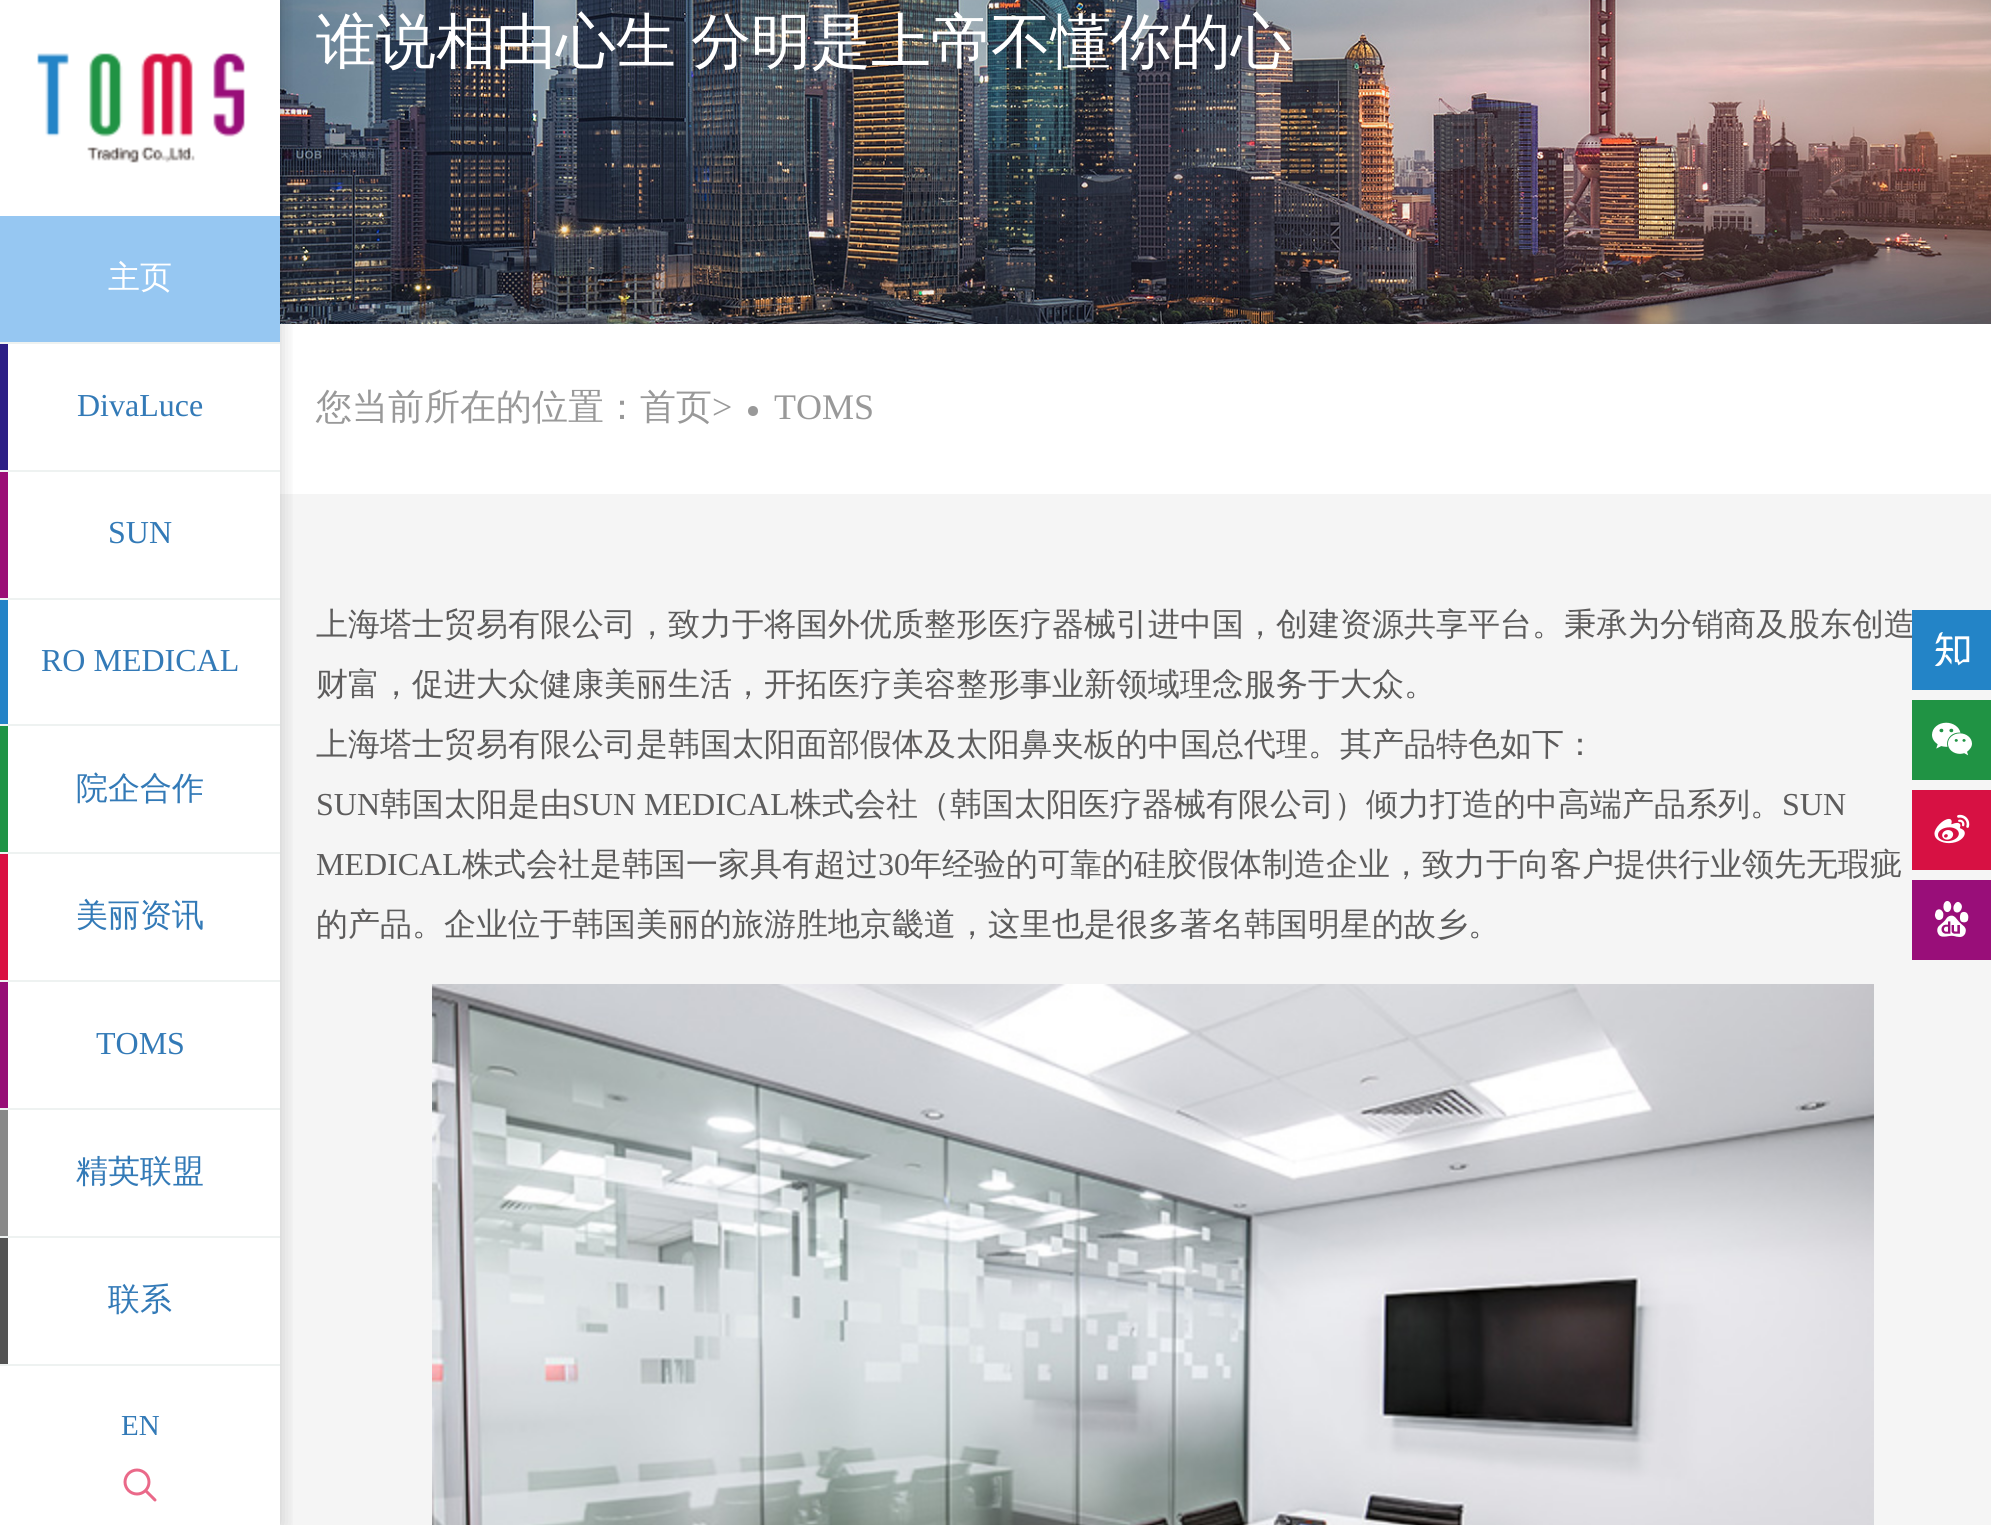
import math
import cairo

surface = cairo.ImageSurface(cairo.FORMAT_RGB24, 1991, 1525)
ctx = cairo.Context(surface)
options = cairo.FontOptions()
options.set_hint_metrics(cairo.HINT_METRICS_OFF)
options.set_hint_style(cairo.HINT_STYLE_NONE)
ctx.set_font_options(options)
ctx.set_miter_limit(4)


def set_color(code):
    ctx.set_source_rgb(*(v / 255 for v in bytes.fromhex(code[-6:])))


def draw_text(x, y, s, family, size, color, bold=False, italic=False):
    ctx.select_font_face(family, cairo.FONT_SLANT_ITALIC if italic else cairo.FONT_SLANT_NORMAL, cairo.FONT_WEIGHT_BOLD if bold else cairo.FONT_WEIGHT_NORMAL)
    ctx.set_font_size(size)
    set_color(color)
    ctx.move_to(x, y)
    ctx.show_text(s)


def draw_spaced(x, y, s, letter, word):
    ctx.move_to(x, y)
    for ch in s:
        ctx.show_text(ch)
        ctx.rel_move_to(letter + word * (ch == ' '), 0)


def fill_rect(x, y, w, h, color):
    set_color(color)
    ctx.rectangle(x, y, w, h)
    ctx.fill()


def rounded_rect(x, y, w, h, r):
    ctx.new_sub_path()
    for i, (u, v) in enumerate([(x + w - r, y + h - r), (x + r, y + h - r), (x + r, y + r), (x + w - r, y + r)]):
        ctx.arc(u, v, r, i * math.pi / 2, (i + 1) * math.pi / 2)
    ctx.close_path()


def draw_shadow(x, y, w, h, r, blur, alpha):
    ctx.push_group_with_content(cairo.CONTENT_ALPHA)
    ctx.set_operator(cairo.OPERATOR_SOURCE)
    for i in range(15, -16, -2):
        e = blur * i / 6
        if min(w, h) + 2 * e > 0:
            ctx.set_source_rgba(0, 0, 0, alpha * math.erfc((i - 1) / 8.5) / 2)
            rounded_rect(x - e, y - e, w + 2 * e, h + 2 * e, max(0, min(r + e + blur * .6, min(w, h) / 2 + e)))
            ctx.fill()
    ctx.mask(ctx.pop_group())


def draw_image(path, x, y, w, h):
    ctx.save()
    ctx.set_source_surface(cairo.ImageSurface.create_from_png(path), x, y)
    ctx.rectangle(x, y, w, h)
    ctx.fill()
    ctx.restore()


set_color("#ffffff")
ctx.paint()
draw_image("assets/img1.png", 280, 0, 1711, 324)
ctx.select_font_face("WenQuanYi Zen Hei Medium")
ctx.set_font_size(60)
set_color("#ffffff")
draw_spaced(316, 62, "谁说相由心生 分明是上帝不懂你的心", 0, -3)
fill_rect(280, 494, 1711, 1031, "#f5f5f5")
ctx.save()
ctx.rectangle(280, 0, 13, 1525)
ctx.clip()
set_color("#000000")
draw_shadow(0, 0, 280, 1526, 0, 10, 0.2)
ctx.restore()
draw_image("assets/img2.png", 37, 53, 208, 110)
fill_rect(0, 342, 280, 2, "#eef2f1")
fill_rect(0, 216, 280, 126, "#96c7f2")
draw_text(108, 288, "主页", "WenQuanYi Zen Hei Medium", 32, "#ffffff")
fill_rect(0, 470, 280, 2, "#eef2f1")
fill_rect(0, 344, 8, 126, "#2c1f86")
draw_text(77, 416, "DivaLuce", "Liberation Serif", 32, "#337ab7")
fill_rect(0, 598, 280, 2, "#eef2f1")
fill_rect(0, 472, 8, 126, "#9b0e76")
draw_text(108, 543, "SUN", "Liberation Serif", 32, "#337ab7")
fill_rect(0, 724, 280, 2, "#eef2f1")
fill_rect(0, 600, 8, 124, "#2483c7")
draw_text(41, 671, "RO MEDICAL", "Liberation Serif", 32, "#337ab7")
fill_rect(0, 852, 280, 2, "#eef2f1")
fill_rect(0, 726, 8, 126, "#1f9445")
draw_text(76, 799, "院企合作", "WenQuanYi Zen Hei Medium", 32, "#337ab7")
fill_rect(0, 980, 280, 2, "#eef2f1")
fill_rect(0, 854, 8, 126, "#da1042")
draw_text(76, 926, "美丽资讯", "WenQuanYi Zen Hei Medium", 32, "#337ab7")
fill_rect(0, 1108, 280, 2, "#eef2f1")
fill_rect(0, 982, 8, 126, "#970e76")
draw_text(96, 1054, "TOMS", "Liberation Serif", 32, "#337ab7")
fill_rect(0, 1236, 280, 2, "#eef2f1")
fill_rect(0, 1110, 8, 126, "#898989")
draw_text(76, 1182, "精英联盟", "WenQuanYi Zen Hei Medium", 32, "#337ab7")
fill_rect(0, 1364, 280, 2, "#eef2f1")
fill_rect(0, 1238, 8, 126, "#535353")
draw_text(108, 1310, "联系", "WenQuanYi Zen Hei Medium", 32, "#337ab7")
draw_text(121, 1435, "EN", "Liberation Serif", 29, "#337ab7")
draw_image("assets/img3.png", 123, 1468, 34, 34)
draw_text(316, 419, "您当前所在的位置：首页", "WenQuanYi Zen Hei Medium", 36, "#999999")
draw_text(712, 419, ">", "Liberation Serif", 36, "#999999")
ctx.new_path()
ctx.arc(753, 411, 5, 0, 2 * math.pi)
ctx.fill()
draw_text(774, 419, "TOMS", "Liberation Serif", 36, "#999999")
draw_text(316, 635, "上海塔士贸易有限公司，致力于将国外优质整形医疗器械引进中国，创建资源共享平台。秉承为分销商及股东创造", "WenQuanYi Zen Hei Medium", 32, "#5d5c5c")
draw_text(316, 695, "财富，促进大众健康美丽生活，开拓医疗美容整形事业新领域理念服务于大众。", "WenQuanYi Zen Hei Medium", 32, "#5d5c5c")
draw_text(316, 755, "上海塔士贸易有限公司是韩国太阳面部假体及太阳鼻夹板的中国总代理。其产品特色如下：", "WenQuanYi Zen Hei Medium", 32, "#5d5c5c")
draw_text(316, 815, "SUN", "Liberation Serif", 32, "#5d5c5c")
draw_text(380, 815, "韩国太阳是由", "WenQuanYi Zen Hei Medium", 32, "#5d5c5c")
draw_text(572, 815, "SUN MEDICAL", "Liberation Serif", 32, "#5d5c5c")
draw_text(790, 815, "株式会社（韩国太阳医疗器械有限公司）倾力打造的中高端产品系列。", "WenQuanYi Zen Hei Medium", 32, "#5d5c5c")
draw_text(1782, 815, "SUN", "Liberation Serif", 32, "#5d5c5c")
draw_text(316, 875, "MEDICAL", "Liberation Serif", 32, "#5d5c5c")
draw_text(462, 875, "株式会社是韩国一家具有超过", "WenQuanYi Zen Hei Medium", 32, "#5d5c5c")
draw_text(878, 875, "30", "Liberation Serif", 32, "#5d5c5c")
draw_text(910, 875, "年经验的可靠的硅胶假体制造企业，致力于向客户提供行业领先无瑕疵", "WenQuanYi Zen Hei Medium", 32, "#5d5c5c")
draw_text(316, 935, "的产品。企业位于韩国美丽的旅游胜地京畿道，这里也是很多著名韩国明星的故乡。", "WenQuanYi Zen Hei Medium", 32, "#5d5c5c")
draw_image("assets/img4.png", 432, 984, 1442, 541)
fill_rect(1912, 610, 79, 80, "#2384c7")
draw_image("assets/img5.png", 1934, 632, 36, 35)
fill_rect(1912, 700, 79, 80, "#209344")
draw_image("assets/img6.png", 1932, 722, 40, 34)
fill_rect(1912, 790, 79, 80, "#d71143")
draw_image("assets/img7.png", 1934, 814, 36, 30)
fill_rect(1912, 880, 79, 80, "#990e79")
draw_image("assets/img8.png", 1934, 901, 35, 36)
surface.write_to_png("output.png")
